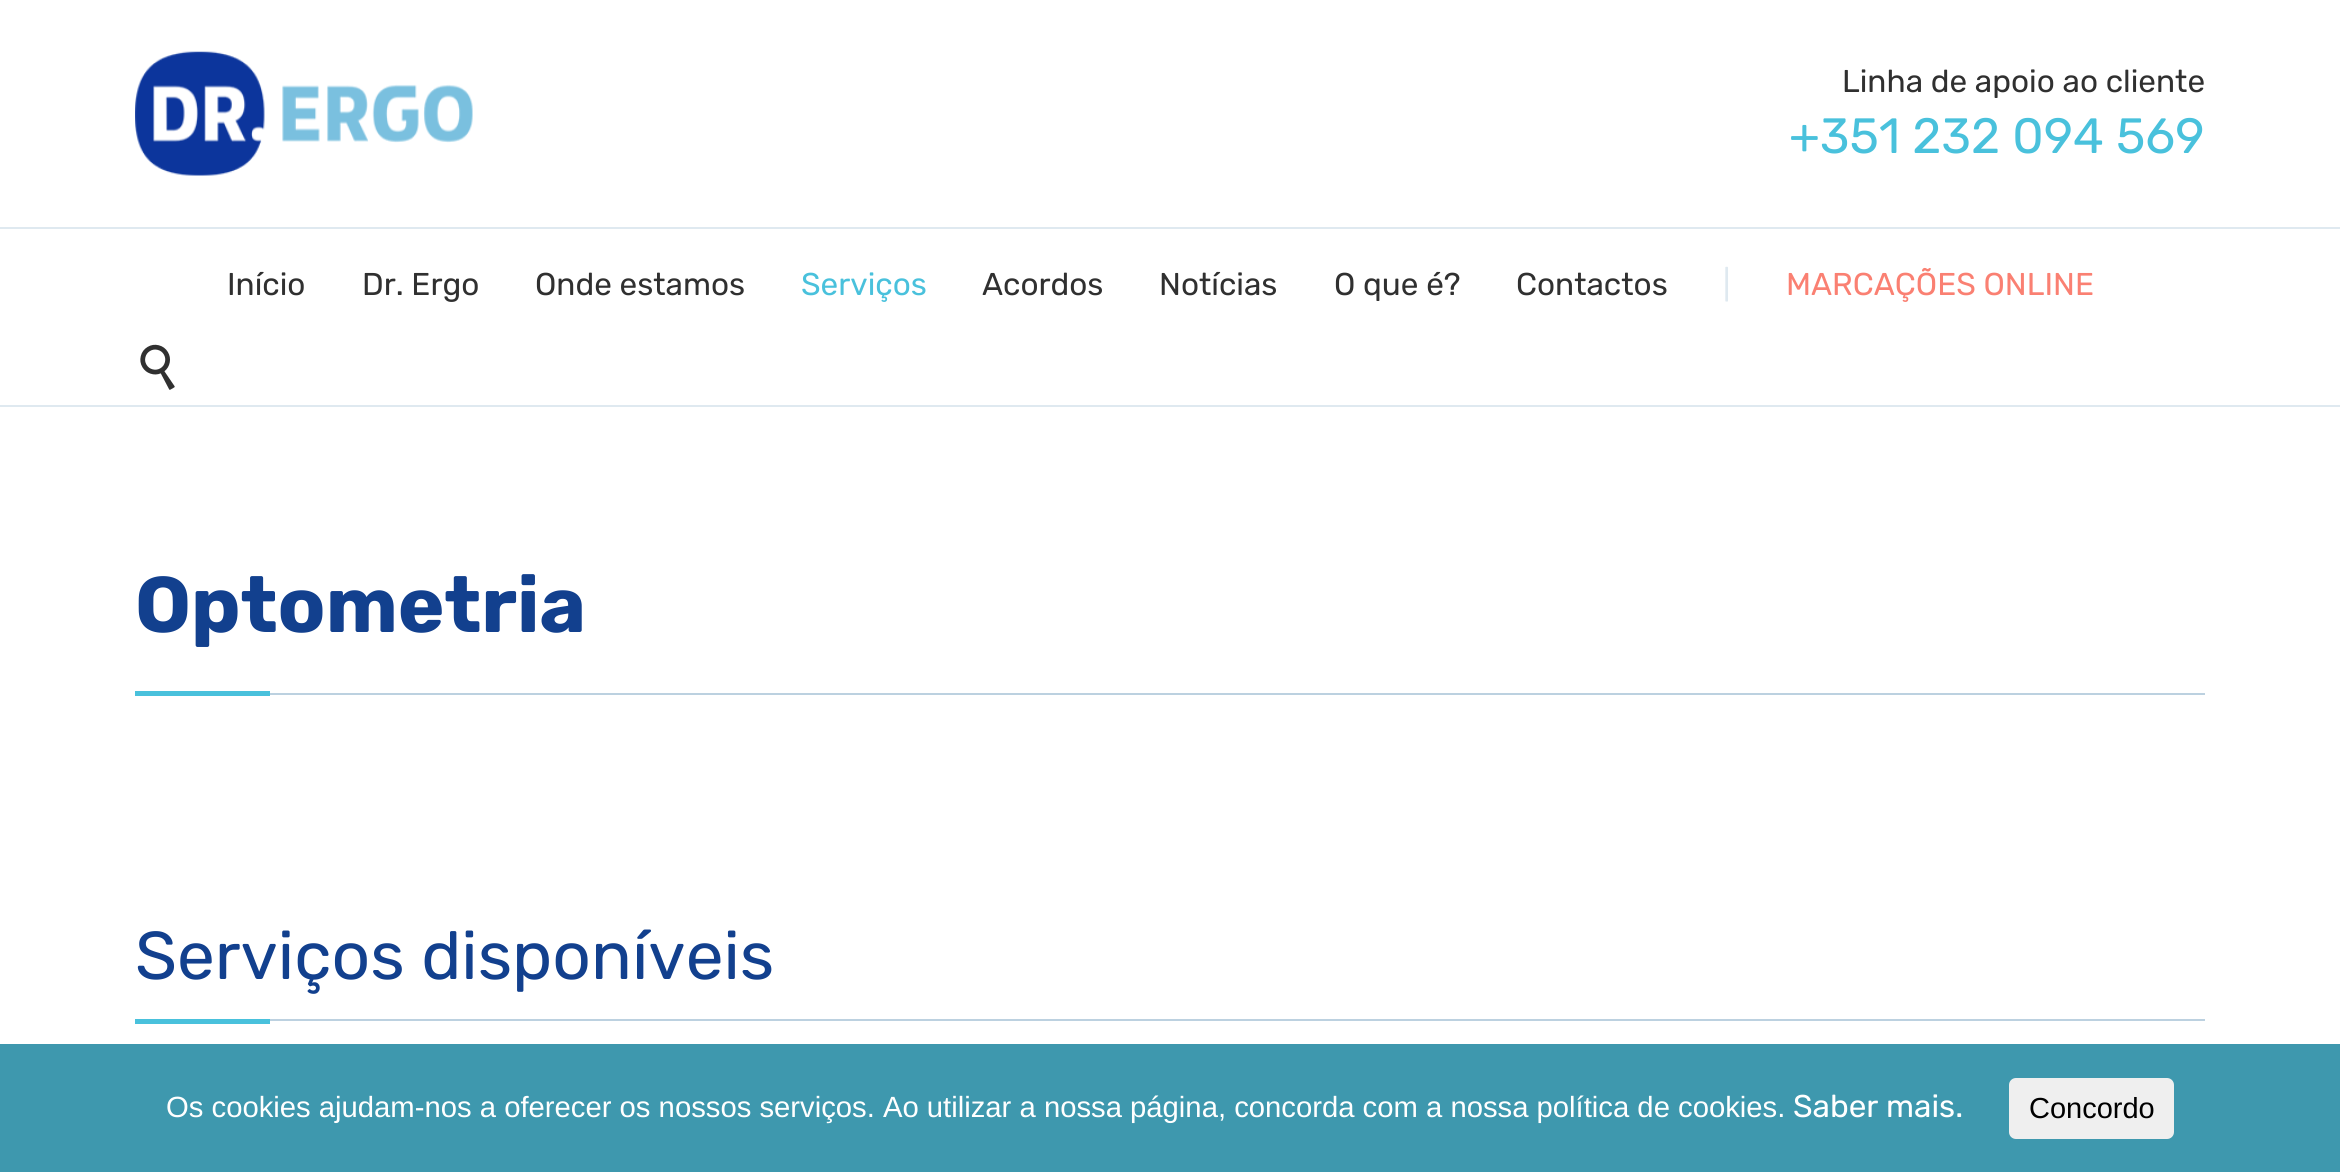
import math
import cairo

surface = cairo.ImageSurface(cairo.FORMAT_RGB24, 2340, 1172)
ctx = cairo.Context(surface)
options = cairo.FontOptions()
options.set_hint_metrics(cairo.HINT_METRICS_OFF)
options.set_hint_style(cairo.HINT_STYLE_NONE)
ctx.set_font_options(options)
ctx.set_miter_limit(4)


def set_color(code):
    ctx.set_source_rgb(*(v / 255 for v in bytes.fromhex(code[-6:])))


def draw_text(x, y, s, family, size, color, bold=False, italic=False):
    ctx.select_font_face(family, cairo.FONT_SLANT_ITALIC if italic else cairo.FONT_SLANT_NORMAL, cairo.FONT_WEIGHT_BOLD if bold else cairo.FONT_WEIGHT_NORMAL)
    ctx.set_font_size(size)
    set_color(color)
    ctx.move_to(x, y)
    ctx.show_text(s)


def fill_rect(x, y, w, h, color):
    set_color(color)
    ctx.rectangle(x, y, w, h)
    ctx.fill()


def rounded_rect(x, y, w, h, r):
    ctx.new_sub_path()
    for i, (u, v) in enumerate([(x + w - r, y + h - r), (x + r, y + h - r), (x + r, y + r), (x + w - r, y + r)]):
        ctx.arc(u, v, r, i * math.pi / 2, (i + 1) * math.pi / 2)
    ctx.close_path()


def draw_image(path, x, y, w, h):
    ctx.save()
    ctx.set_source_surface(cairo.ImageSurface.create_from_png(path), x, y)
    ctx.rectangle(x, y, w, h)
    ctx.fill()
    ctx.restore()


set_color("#ffffff")
ctx.paint()
draw_image("assets/img1.png", 135, 51, 338, 125)
draw_text(1842, 92, "Linha de apoio ao cliente", "Rubik", 31.5, "#303030")
draw_text(1789, 153, "+351 232 094 569", "Rubik", 49.5, "#49c1dc")
fill_rect(0, 227, 2340, 2, "#dfe9f0")
fill_rect(0, 405, 2340, 2, "#dfe9f0")
draw_text(227, 295, "Início", "Rubik", 31.5, "#303030")
draw_text(362, 295, "Dr. Ergo", "Rubik", 31.5, "#303030")
draw_text(535, 295, "Onde estamos", "Rubik", 31.5, "#303030")
draw_text(801, 295, "Serviços", "Rubik", 31.5, "#49c1dc")
draw_text(982, 295, "Acordos", "Rubik", 31.5, "#303030")
draw_text(1159, 295, "Notícias", "Rubik", 31.5, "#303030")
draw_text(1334, 295, "O que é?", "Rubik", 31.5, "#303030")
draw_text(1516, 295, "Contactos", "Rubik", 31.5, "#303030")
draw_text(1723, 295, "|", "Rubik", 31.5, "#dfe9f0")
draw_text(1786, 295, "MARCAÇÕES ONLINE", "Rubik", 31.5, "#fa8072")
draw_image("assets/img2.png", 140, 344, 35, 46)
fill_rect(270, 693, 1935, 2, "#bcd1e0")
draw_text(135, 632, "Optometria", "Rubik", 78.75, "#12408e", bold=True)
fill_rect(135, 691, 135, 5, "#49c1dc")
draw_text(135, 979, "Serviços disponíveis", "Rubik", 67.5, "#12408e")
fill_rect(270, 1019, 1935, 2, "#bcd1e0")
fill_rect(135, 1019, 135, 5, "#49c1dc")
fill_rect(0, 1044, 2340, 128, "#3e98ae")
draw_text(166, 1117, "Os cookies ajudam-nos a oferecer os nossos serviços. Ao utilizar a nossa página, concorda com a nossa política de cookies.", "Liberation Sans", 29.25, "#ffffff")
draw_text(1793, 1117, "Saber mais.", "Rubik", 31.5, "#ffffff")
set_color("#efefef")
rounded_rect(2009, 1078, 165, 61, 7)
ctx.fill()
draw_text(2029, 1118, "Concordo", "Liberation Sans", 29, "#000000")
surface.write_to_png("output.png")
